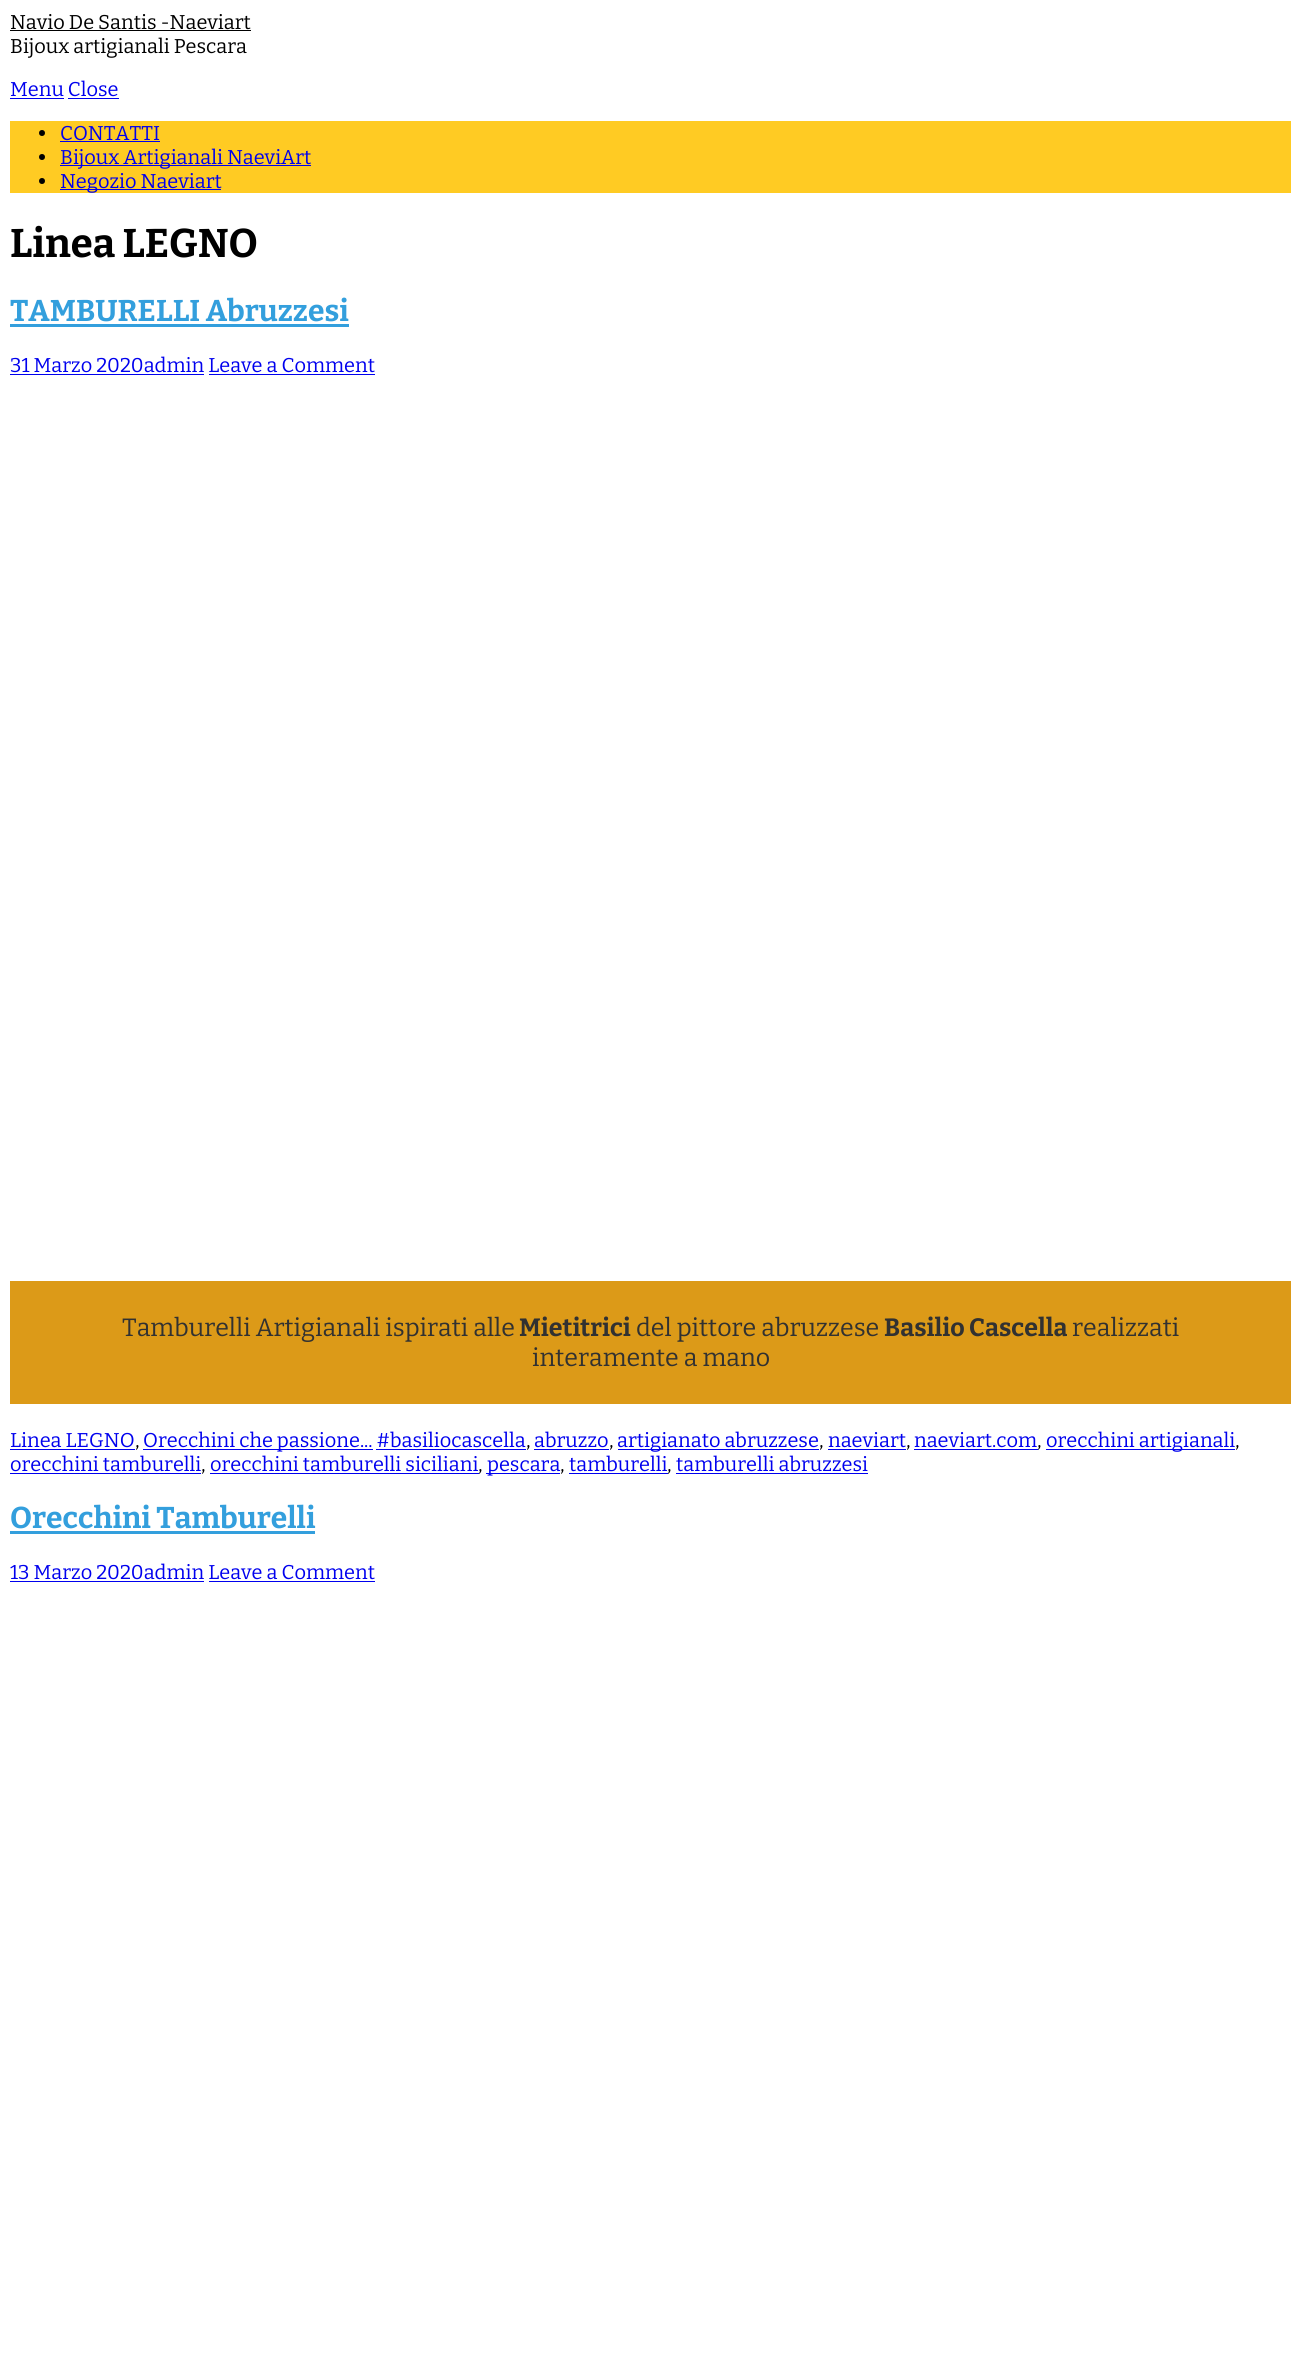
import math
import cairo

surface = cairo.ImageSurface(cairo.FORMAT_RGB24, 1301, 2353)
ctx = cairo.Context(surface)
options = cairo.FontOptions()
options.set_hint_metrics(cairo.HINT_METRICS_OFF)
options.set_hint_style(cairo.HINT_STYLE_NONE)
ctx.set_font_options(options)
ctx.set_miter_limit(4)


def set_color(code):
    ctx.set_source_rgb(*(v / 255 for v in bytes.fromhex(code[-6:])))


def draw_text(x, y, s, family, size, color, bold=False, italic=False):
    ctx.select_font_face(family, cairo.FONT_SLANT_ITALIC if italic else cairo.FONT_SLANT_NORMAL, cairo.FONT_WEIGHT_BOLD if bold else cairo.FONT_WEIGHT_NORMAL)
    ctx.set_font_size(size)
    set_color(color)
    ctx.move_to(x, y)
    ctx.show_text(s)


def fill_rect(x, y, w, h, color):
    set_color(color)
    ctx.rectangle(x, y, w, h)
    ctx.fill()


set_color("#ffffff")
ctx.paint()
draw_text(10, 29, "Navio De Santis -Naeviart", "Bitter", 20, "#000000")
fill_rect(10, 30, 241, 1, "#000000")
draw_text(10, 53, "Bijoux artigianali Pescara", "Bitter", 20, "#000000")
draw_text(10, 96, "Menu Close", "Bitter", 20, "#0000ee")
fill_rect(10, 98, 54, 1, "#0000ee")
fill_rect(68, 98, 51, 1, "#0000ee")
fill_rect(10, 121, 1281, 72, "#ffcb23")
set_color("#000000")
ctx.new_path()
ctx.arc(42, 133, 3, 0, 2 * math.pi)
ctx.fill()
draw_text(60, 140, "CONTATTI", "Bitter", 20, "#0000ee")
fill_rect(60, 141, 100, 1, "#0000ee")
set_color("#000000")
ctx.new_path()
ctx.arc(42, 157, 3, 0, 2 * math.pi)
ctx.fill()
fill_rect(60, 165, 251, 1, "#0000ee")
draw_text(60, 164, "Bijoux Artigianali NaeviArt", "Bitter", 20, "#0000ee")
set_color("#000000")
ctx.new_path()
ctx.arc(42, 181, 3, 0, 2 * math.pi)
ctx.fill()
fill_rect(60, 189, 161, 1, "#0000ee")
draw_text(60, 188, "Negozio Naeviart", "Bitter", 20, "#0000ee")
draw_text(10, 257, "Linea LEGNO", "Bitter", 40, "#000000", bold=True)
draw_text(10, 321, "TAMBURELLI Abruzzesi", "Bitter", 30, "#339fdd", bold=True)
fill_rect(10, 324, 339, 3, "#339fdd")
draw_text(10, 372, "31 Marzo 2020admin Leave a Comment", "Bitter", 20, "#0000ee")
fill_rect(10, 374, 194, 1, "#0000ee")
fill_rect(209, 374, 166, 1, "#0000ee")
fill_rect(10, 1281, 1281, 123, "#dc9a18")
draw_text(122, 1336, "Tamburelli Artigianali ispirati alle", "Bitter", 25, "#313131")
draw_text(519, 1336, "Mietitrici", "Bitter", 25, "#313131", bold=True)
draw_text(636, 1336, "del pittore abruzzese", "Bitter", 25, "#313131")
draw_text(884, 1336, "Basilio Cascella", "Bitter", 25, "#313131", bold=True)
draw_text(1072, 1336, "realizzati", "Bitter", 25, "#313131")
draw_text(532, 1366, "interamente a mano", "Bitter", 25, "#313131")
draw_text(10, 1447, "Linea LEGNO", "Bitter", 20, "#0000ee")
draw_text(135, 1447, ",", "Bitter", 20, "#000000")
fill_rect(10, 1449, 125, 1, "#0000ee")
fill_rect(143, 1449, 230, 1, "#0000ee")
draw_text(143, 1447, "Orecchini che passione... #basiliocascella", "Bitter", 20, "#0000ee")
draw_text(526, 1447, ",", "Bitter", 20, "#000000")
fill_rect(376, 1449, 150, 1, "#0000ee")
draw_text(534, 1447, "abruzzo", "Bitter", 20, "#0000ee")
draw_text(609, 1447, ",", "Bitter", 20, "#000000")
fill_rect(534, 1449, 75, 1, "#0000ee")
fill_rect(618, 1449, 201, 1, "#0000ee")
draw_text(617, 1447, "artigianato abruzzese", "Bitter", 20, "#0000ee")
draw_text(819, 1447, ",", "Bitter", 20, "#000000")
draw_text(828, 1447, "naeviart", "Bitter", 20, "#0000ee")
draw_text(906, 1447, ",", "Bitter", 20, "#000000")
fill_rect(828, 1449, 78, 1, "#0000ee")
draw_text(914, 1447, "naeviart.com", "Bitter", 20, "#0000ee")
draw_text(1037, 1447, ",", "Bitter", 20, "#000000")
fill_rect(914, 1449, 124, 1, "#0000ee")
fill_rect(1046, 1449, 189, 1, "#0000ee")
draw_text(1046, 1447, "orecchini artigianali", "Bitter", 20, "#0000ee")
draw_text(1235, 1447, ",", "Bitter", 20, "#000000")
draw_text(10, 1471, "orecchini tamburelli", "Bitter", 20, "#0000ee")
draw_text(201, 1471, ",", "Bitter", 20, "#000000")
fill_rect(10, 1473, 191, 1, "#0000ee")
draw_text(210, 1471, "orecchini tamburelli siciliani", "Bitter", 20, "#0000ee")
draw_text(478, 1471, ",", "Bitter", 20, "#000000")
fill_rect(210, 1473, 269, 1, "#0000ee")
fill_rect(486, 1473, 74, 1, "#0000ee")
draw_text(487, 1471, "pescara", "Bitter", 20, "#0000ee")
draw_text(560, 1471, ",", "Bitter", 20, "#000000")
draw_text(569, 1471, "tamburelli", "Bitter", 20, "#0000ee")
draw_text(667, 1471, ",", "Bitter", 20, "#000000")
fill_rect(569, 1473, 99, 1, "#0000ee")
fill_rect(676, 1473, 192, 1, "#0000ee")
draw_text(676, 1471, "tamburelli abruzzesi", "Bitter", 20, "#0000ee")
draw_text(10, 1528, "Orecchini Tamburelli", "Bitter", 30, "#339fdd", bold=True)
fill_rect(10, 1531, 305, 3, "#339fdd")
draw_text(10, 1579, "13 Marzo 2020admin Leave a Comment", "Bitter", 20, "#0000ee")
fill_rect(10, 1581, 194, 1, "#0000ee")
fill_rect(209, 1581, 166, 1, "#0000ee")
surface.write_to_png("output.png")
